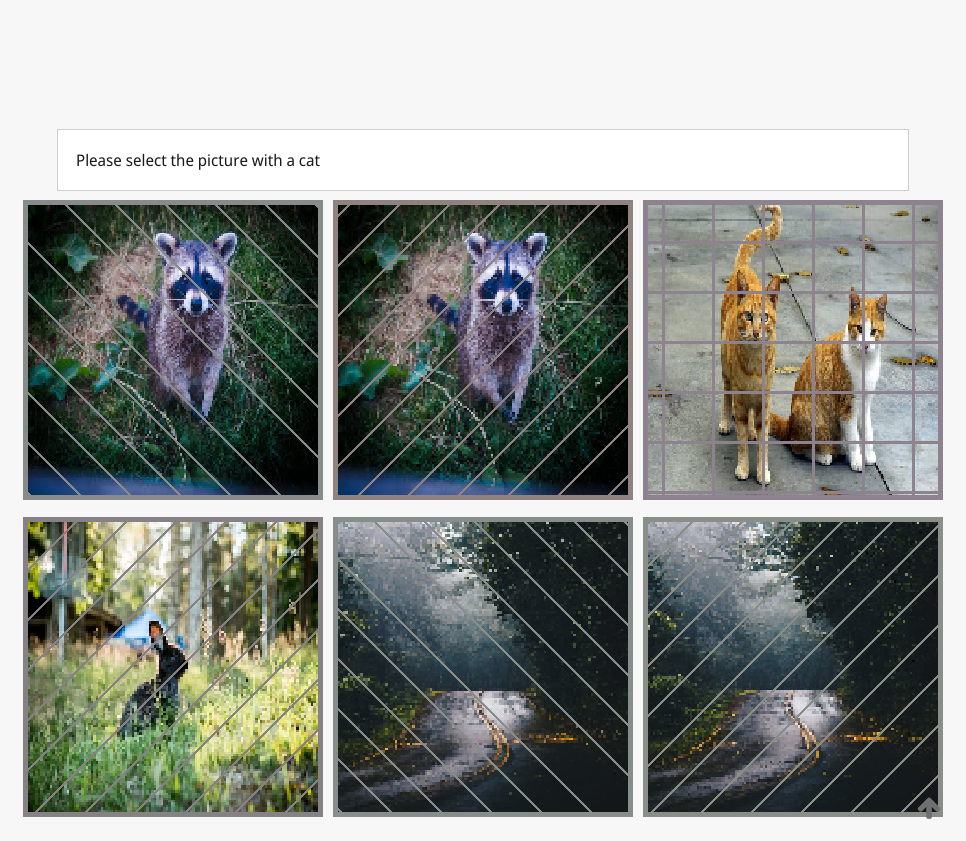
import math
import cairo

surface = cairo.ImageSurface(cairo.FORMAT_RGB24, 966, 841)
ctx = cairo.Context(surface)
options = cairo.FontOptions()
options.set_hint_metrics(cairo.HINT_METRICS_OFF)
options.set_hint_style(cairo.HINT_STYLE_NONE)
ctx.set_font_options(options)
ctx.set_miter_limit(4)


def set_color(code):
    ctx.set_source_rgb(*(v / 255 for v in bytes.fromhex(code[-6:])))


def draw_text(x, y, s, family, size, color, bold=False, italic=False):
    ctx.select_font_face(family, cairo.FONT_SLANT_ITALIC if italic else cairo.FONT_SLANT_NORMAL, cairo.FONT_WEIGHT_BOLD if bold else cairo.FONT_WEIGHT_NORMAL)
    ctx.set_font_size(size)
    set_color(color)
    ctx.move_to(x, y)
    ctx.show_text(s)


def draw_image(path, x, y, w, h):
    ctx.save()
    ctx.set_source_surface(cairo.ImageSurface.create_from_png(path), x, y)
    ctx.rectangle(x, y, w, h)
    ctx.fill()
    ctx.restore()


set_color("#f7f7f7")
ctx.paint()
set_color("#ffffff")
ctx.rectangle(57.5, 129.5, 851, 61)
ctx.fill_preserve()
set_color("#cccccc")
ctx.set_line_width(1)
ctx.stroke()
draw_text(76, 166, "Please select the picture with a cat", "Noto Sans Display", 16, "#1a1a1a")
draw_image("assets/img1.png", 23, 200, 300, 300)
draw_image("assets/img2.png", 333, 200, 300, 300)
draw_image("assets/img3.png", 643, 200, 300, 300)
draw_image("assets/img4.png", 23, 517, 300, 300)
draw_image("assets/img5.png", 333, 517, 300, 300)
draw_image("assets/img6.png", 643, 517, 300, 300)
draw_image("assets/img7.png", 917, 797, 24, 22)
surface.write_to_png("output.png")
